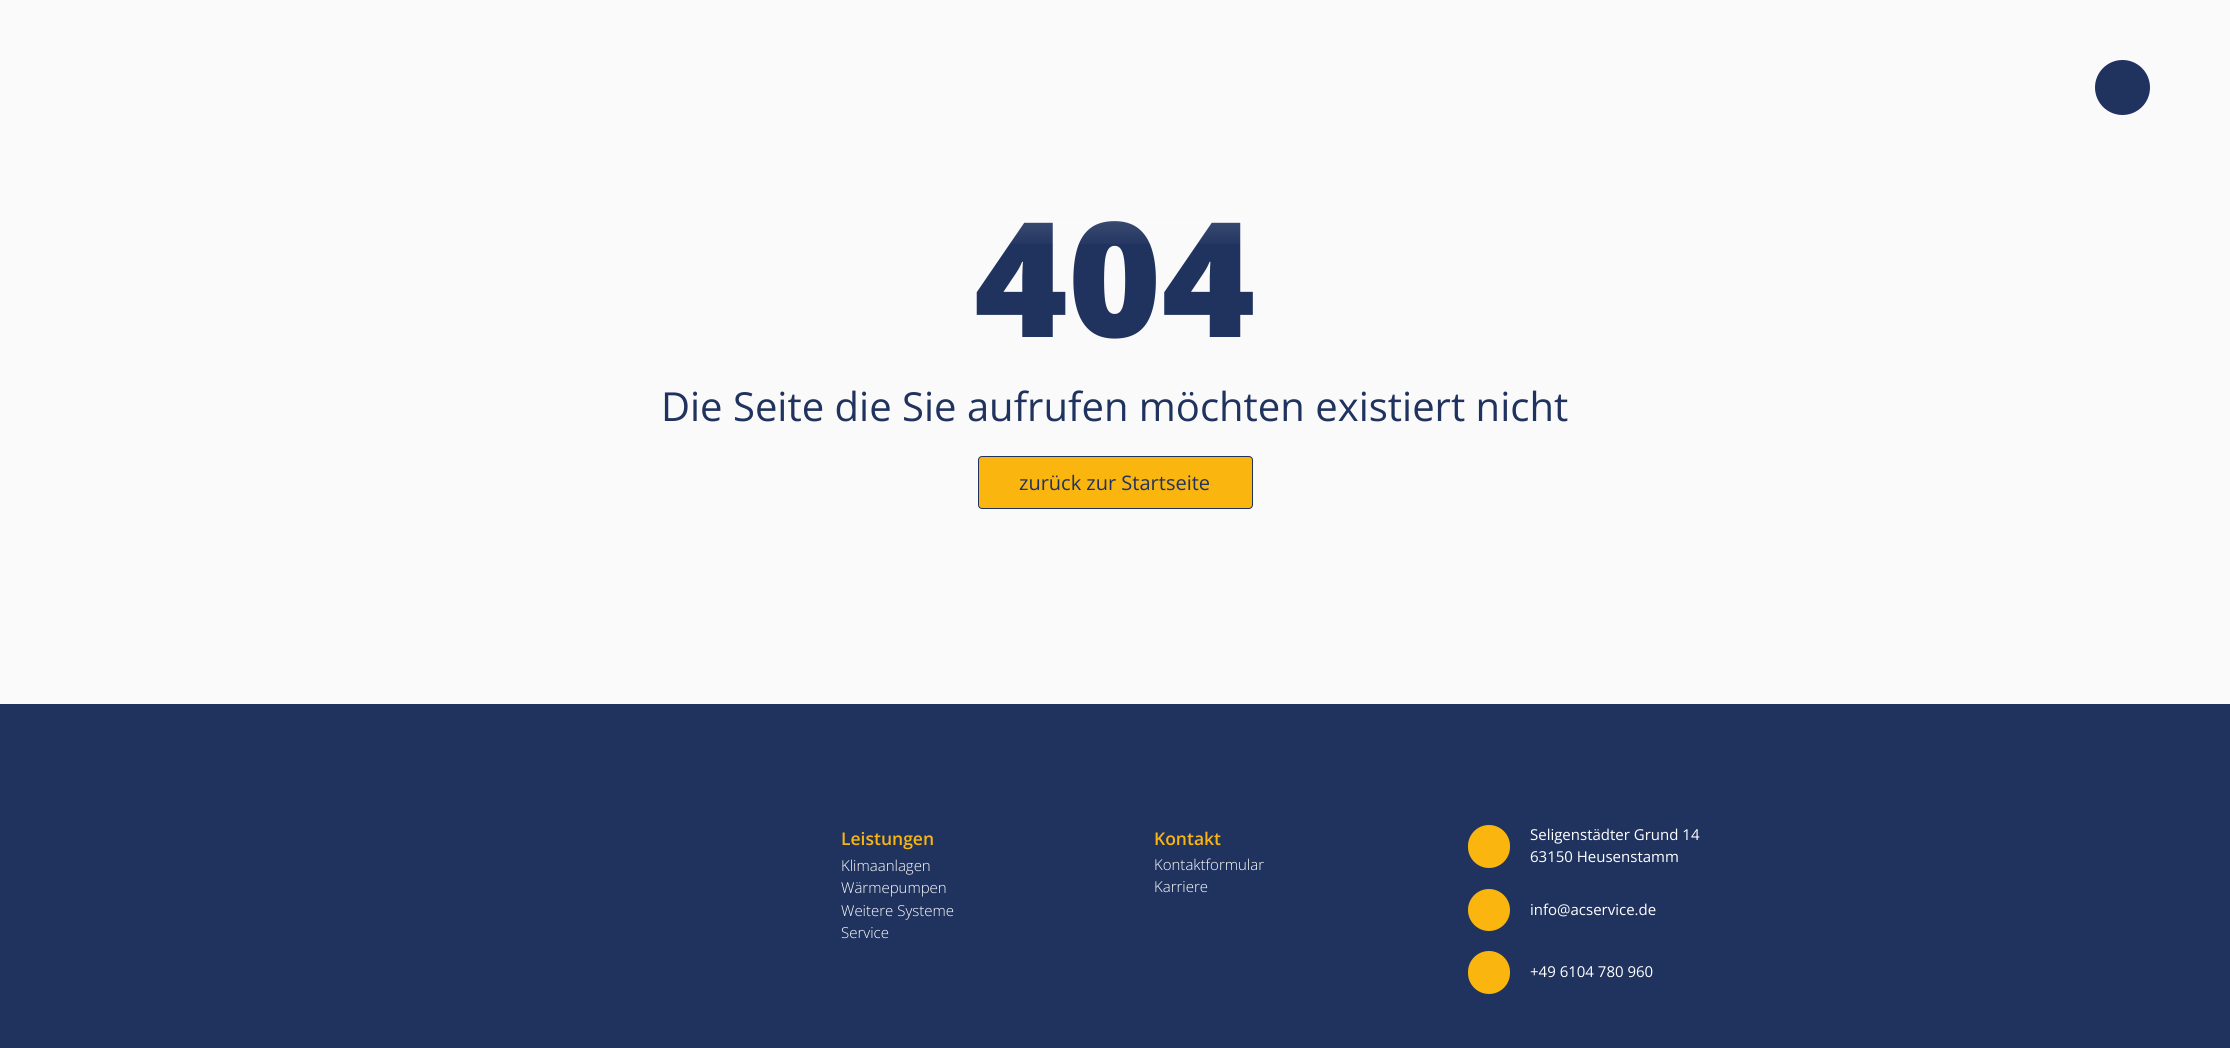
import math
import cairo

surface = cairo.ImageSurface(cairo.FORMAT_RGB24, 2230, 1048)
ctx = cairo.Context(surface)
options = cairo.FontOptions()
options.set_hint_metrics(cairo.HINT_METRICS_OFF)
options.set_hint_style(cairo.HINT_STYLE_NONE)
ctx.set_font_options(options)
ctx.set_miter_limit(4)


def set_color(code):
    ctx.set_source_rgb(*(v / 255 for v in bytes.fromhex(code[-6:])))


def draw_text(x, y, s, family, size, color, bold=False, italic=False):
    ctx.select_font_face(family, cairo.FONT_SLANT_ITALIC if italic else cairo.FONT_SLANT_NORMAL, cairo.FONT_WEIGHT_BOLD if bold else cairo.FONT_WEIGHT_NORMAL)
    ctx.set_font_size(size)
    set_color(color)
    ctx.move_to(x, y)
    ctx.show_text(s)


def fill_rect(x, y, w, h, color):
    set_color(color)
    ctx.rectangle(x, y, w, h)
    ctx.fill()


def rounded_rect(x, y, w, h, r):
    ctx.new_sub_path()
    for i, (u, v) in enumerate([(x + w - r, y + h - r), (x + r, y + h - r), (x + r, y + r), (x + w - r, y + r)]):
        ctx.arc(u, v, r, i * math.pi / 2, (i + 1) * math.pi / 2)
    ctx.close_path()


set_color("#fafafa")
ctx.paint()
draw_text(974, 337, "404", "Open Sans ExtraBold", 160, "#20335f")
gradient = cairo.LinearGradient(1115, 0, 1115, 249)
gradient.add_color_stop_rgba(0, 0.98, 0.98, 0.98, 1)
gradient.add_color_stop_rgba(1, 0.98, 0.98, 0.98, 0)
ctx.set_source(gradient)
ctx.rectangle(1010, 221, 231, 23)
ctx.fill()
set_color("#20335f")
ctx.arc(2122.5, 87.5, 27.5, 0, 2 * math.pi)
ctx.fill()
draw_text(661, 421, "Die Seite die Sie aufrufen möchten existiert nicht", "Open Sans", 40, "#20335f")
set_color("#fab50e")
rounded_rect(978.5, 456.5, 274, 52, 3.5)
ctx.fill_preserve()
set_color("#20335f")
ctx.set_line_width(1)
ctx.stroke()
draw_text(1019, 490, "zurück zur Startseite", "Open Sans", 20, "#20335f")
fill_rect(0, 704, 2230, 344, "#20335f")
draw_text(841, 845, "Leistungen", "Open Sans SemiBold", 17.5, "#fab50e")
draw_text(841, 871, "Klimaanlagen", "Open Sans Light", 15, "#ffffff")
draw_text(841, 893, "Wärmepumpen", "Open Sans Light", 15, "#ffffff")
draw_text(841, 916, "Weitere Systeme", "Open Sans Light", 15, "#ffffff")
draw_text(841, 938, "Service", "Open Sans Light", 15, "#ffffff")
draw_text(1154, 845, "Kontakt", "Open Sans SemiBold", 17.5, "#fab50e")
draw_text(1154, 870, "Kontaktformular", "Open Sans Light", 15, "#ffffff")
draw_text(1154, 892, "Karriere", "Open Sans Light", 15, "#ffffff")
set_color("#fab50e")
rounded_rect(1468, 825, 42, 43, 21)
ctx.fill()
draw_text(1530, 840, "Seligenstädter Grund 14", "Open Sans", 15, "#ffffff")
draw_text(1530, 862, "63150 Heusenstamm", "Open Sans", 15, "#ffffff")
set_color("#fab50e")
ctx.new_path()
ctx.arc(1489, 910, 21, 0, 2 * math.pi)
ctx.fill()
draw_text(1530, 915, "info@acservice.de", "Open Sans", 15, "#ffffff")
set_color("#fab50e")
rounded_rect(1468, 951, 42, 43, 21)
ctx.fill()
draw_text(1530, 977, "+49 6104 780 960", "Open Sans", 15, "#ffffff")
surface.write_to_png("output.png")
